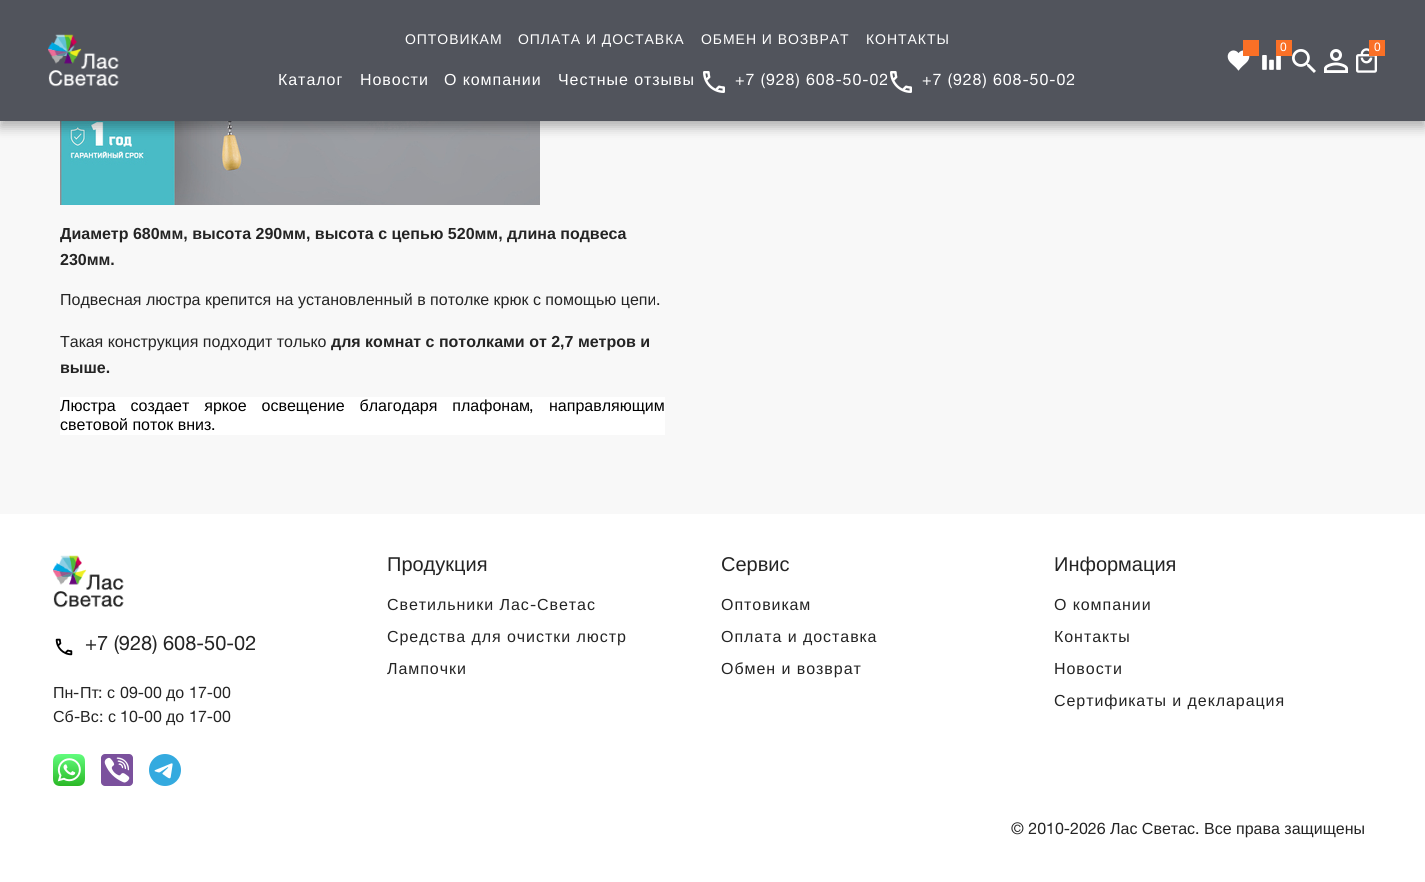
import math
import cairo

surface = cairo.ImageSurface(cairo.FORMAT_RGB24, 1425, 882)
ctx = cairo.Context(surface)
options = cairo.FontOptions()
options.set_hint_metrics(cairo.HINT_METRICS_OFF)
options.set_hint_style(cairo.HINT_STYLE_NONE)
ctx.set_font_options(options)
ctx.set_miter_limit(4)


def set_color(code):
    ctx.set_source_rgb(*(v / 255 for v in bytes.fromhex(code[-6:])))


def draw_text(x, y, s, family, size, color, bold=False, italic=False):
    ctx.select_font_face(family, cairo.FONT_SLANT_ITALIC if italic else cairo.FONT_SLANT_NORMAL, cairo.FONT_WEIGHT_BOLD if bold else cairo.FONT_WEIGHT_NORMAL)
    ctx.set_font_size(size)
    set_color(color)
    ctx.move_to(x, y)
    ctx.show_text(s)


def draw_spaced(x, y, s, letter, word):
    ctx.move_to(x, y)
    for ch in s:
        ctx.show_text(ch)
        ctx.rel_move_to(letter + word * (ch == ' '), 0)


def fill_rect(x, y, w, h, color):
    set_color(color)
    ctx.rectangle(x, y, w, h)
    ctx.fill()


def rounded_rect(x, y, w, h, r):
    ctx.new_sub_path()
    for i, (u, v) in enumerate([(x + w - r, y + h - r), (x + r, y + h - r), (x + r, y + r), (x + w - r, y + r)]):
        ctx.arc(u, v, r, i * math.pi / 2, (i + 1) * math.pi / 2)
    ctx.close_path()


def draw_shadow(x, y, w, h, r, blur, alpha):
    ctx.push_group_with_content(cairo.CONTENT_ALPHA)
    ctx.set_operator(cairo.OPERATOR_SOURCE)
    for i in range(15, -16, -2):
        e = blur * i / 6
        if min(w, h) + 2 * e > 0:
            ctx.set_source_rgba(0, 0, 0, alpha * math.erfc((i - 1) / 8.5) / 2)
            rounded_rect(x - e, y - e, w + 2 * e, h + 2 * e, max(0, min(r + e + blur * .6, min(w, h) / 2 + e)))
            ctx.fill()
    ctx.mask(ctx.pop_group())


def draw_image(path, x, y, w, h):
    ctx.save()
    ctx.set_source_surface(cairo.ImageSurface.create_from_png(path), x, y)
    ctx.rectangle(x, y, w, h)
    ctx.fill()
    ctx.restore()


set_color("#ffffff")
ctx.paint()
fill_rect(0, 121, 1425, 393, "#f8f8f8")
draw_image("assets/img8.png", 60, 121, 480, 84)
set_color("#000000")
draw_shadow(0, 6, 1425, 121, 0, 6, 0.3)
fill_rect(0, 0, 1425, 121, "#51545c")
draw_image("assets/img1.png", 48, 34, 71, 53)
ctx.select_font_face("Liberation Sans")
ctx.set_font_size(14)
set_color("#ffffff")
draw_spaced(405, 44, "ОПТОВИКАМ", 0.95, 0)
draw_spaced(518, 44, "ОПЛАТА И ДОСТАВКА", 0.95, 0)
draw_spaced(701, 44, "ОБМЕН И ВОЗВРАТ", 0.95, 0)
draw_spaced(866, 44, "КОНТАКТЫ", 0.95, 0)
ctx.set_font_size(16)
draw_spaced(278, 85, "Каталог", 0.95, 0)
draw_spaced(360, 85, "Новости", 0.95, 0)
draw_spaced(444, 85, "О компании", 0.95, 0)
draw_spaced(558, 85, "Честные отзывы", 0.95, 0)
draw_image("assets/img2.png", 703, 71, 22, 22)
ctx.select_font_face("Helvetica Neue")
draw_spaced(735, 85, "+7 (928) 608-50-02", 0.95, 0)
draw_image("assets/img2.png", 890, 71, 22, 22)
draw_spaced(922, 85, "+7 (928) 608-50-02", 0.95, 0)
draw_image("assets/img3.png", 1227, 50, 23, 21)
fill_rect(1243, 40, 16, 16, "#fa7026")
draw_image("assets/img4.png", 1262, 55, 19, 15)
fill_rect(1276, 40, 16, 16, "#fa7026")
draw_text(1280, 51, "0", "Helvetica Neue", 12, "#ffffff")
draw_image("assets/img5.png", 1356, 48, 21, 25)
fill_rect(1369, 40, 16, 16, "#fa7026")
draw_text(1374, 51, "0", "Helvetica Neue", 12, "#ffffff")
draw_image("assets/img6.png", 1292, 49, 24, 24)
draw_image("assets/img7.png", 1324, 49, 24, 24)
draw_text(60, 239, "Диаметр 680мм, высота 290мм, высота с цепью 520мм, длина подвеса", "Liberation Sans", 16, "#242424", bold=True)
draw_text(60, 265, "230мм.", "Liberation Sans", 16, "#242424", bold=True)
draw_text(60, 305, "Подвесная люстра крепится на установленный в потолке крюк с помощью цепи", "Liberation Sans", 16, "#242424")
draw_text(656, 305, ".", "Helvetica Neue", 16, "#242424")
draw_text(60, 347, "Такая конструкция подходит только", "Liberation Sans", 16, "#242424")
draw_text(331, 347, "для комнат с потолками от 2,7 метров и", "Liberation Sans", 16, "#242424", bold=True)
draw_text(60, 373, "выше.", "Liberation Sans", 16, "#242424", bold=True)
fill_rect(60, 397, 605, 38, "#ffffff")
ctx.select_font_face("Liberation Sans")
set_color("#000000")
draw_spaced(60, 411, "Люстра создает яркое освещение благодаря плафонам", 0, 10.5)
draw_text(529, 411, ",", "Helvetica Neue", 16, "#000000")
draw_text(549, 411, "направляющим", "Liberation Sans", 16, "#000000")
draw_text(60, 430, "световой поток вниз", "Liberation Sans", 16, "#000000")
draw_text(211, 430, ".", "Helvetica Neue", 16, "#000000")
draw_image("assets/img9.png", 53, 555, 71, 53)
draw_image("assets/img10.png", 55, 638, 18, 18)
draw_text(85, 650, "+7 (928) 608-50-02", "Helvetica Neue", 20, "#242424")
draw_text(53, 698, "Пн", "Liberation Sans", 16, "#242424")
draw_text(73, 698, "-", "Helvetica Neue", 16, "#242424")
draw_text(80, 698, "Пт", "Liberation Sans", 16, "#242424")
draw_text(98, 698, ":", "Helvetica Neue", 16, "#242424")
draw_text(107, 698, "с", "Liberation Sans", 16, "#242424")
draw_text(120, 698, "09-00", "Helvetica Neue", 16, "#242424")
draw_text(166, 698, "до", "Liberation Sans", 16, "#242424")
draw_text(189, 698, "17-00", "Helvetica Neue", 16, "#242424")
draw_text(53, 722, "Сб", "Liberation Sans", 16, "#242424")
draw_text(74, 722, "-", "Helvetica Neue", 16, "#242424")
draw_text(80, 722, "Вс", "Liberation Sans", 16, "#242424")
draw_text(99, 722, ":", "Helvetica Neue", 16, "#242424")
draw_text(108, 722, "с", "Liberation Sans", 16, "#242424")
draw_text(120, 722, "10-00", "Helvetica Neue", 16, "#242424")
draw_text(166, 722, "до", "Liberation Sans", 16, "#242424")
draw_text(189, 722, "17-00", "Helvetica Neue", 16, "#242424")
draw_image("assets/img11.png", 53, 754, 32, 32)
draw_image("assets/img12.png", 101, 754, 32, 32)
draw_image("assets/img13.png", 149, 754, 32, 32)
draw_text(387, 571, "Продукция", "Liberation Sans", 20, "#242424")
ctx.set_font_size(16)
draw_spaced(387, 610, "Светильники Лас", 0.95, 0)
ctx.select_font_face("Helvetica Neue")
draw_spaced(530, 610, "-", 0.95, 0)
ctx.select_font_face("Liberation Sans")
draw_spaced(537, 610, "Светас", 0.95, 0)
draw_spaced(387, 642, "Средства для очистки люстр", 0.95, 0)
draw_spaced(387, 674, "Лампочки", 0.95, 0)
draw_text(721, 571, "Сервис", "Liberation Sans", 20, "#242424")
ctx.set_font_size(16)
draw_spaced(721, 610, "Оптовикам", 0.95, 0)
draw_spaced(721, 642, "Оплата и доставка", 0.95, 0)
draw_spaced(721, 674, "Обмен и возврат", 0.95, 0)
draw_text(1054, 571, "Информация", "Liberation Sans", 20, "#242424")
ctx.set_font_size(16)
draw_spaced(1054, 610, "О компании", 0.95, 0)
draw_spaced(1054, 642, "Контакты", 0.95, 0)
draw_spaced(1054, 674, "Новости", 0.95, 0)
draw_spaced(1054, 706, "Сертификаты и декларация", 0.95, 0)
draw_text(1011, 834, "© 2010-2026", "Helvetica Neue", 16, "#242424")
draw_text(1110, 834, "Лас Светас", "Liberation Sans", 16, "#242424")
draw_text(1195, 834, ".", "Helvetica Neue", 16, "#242424")
draw_text(1204, 834, "Все права защищены", "Liberation Sans", 16, "#242424")
surface.write_to_png("output.png")
